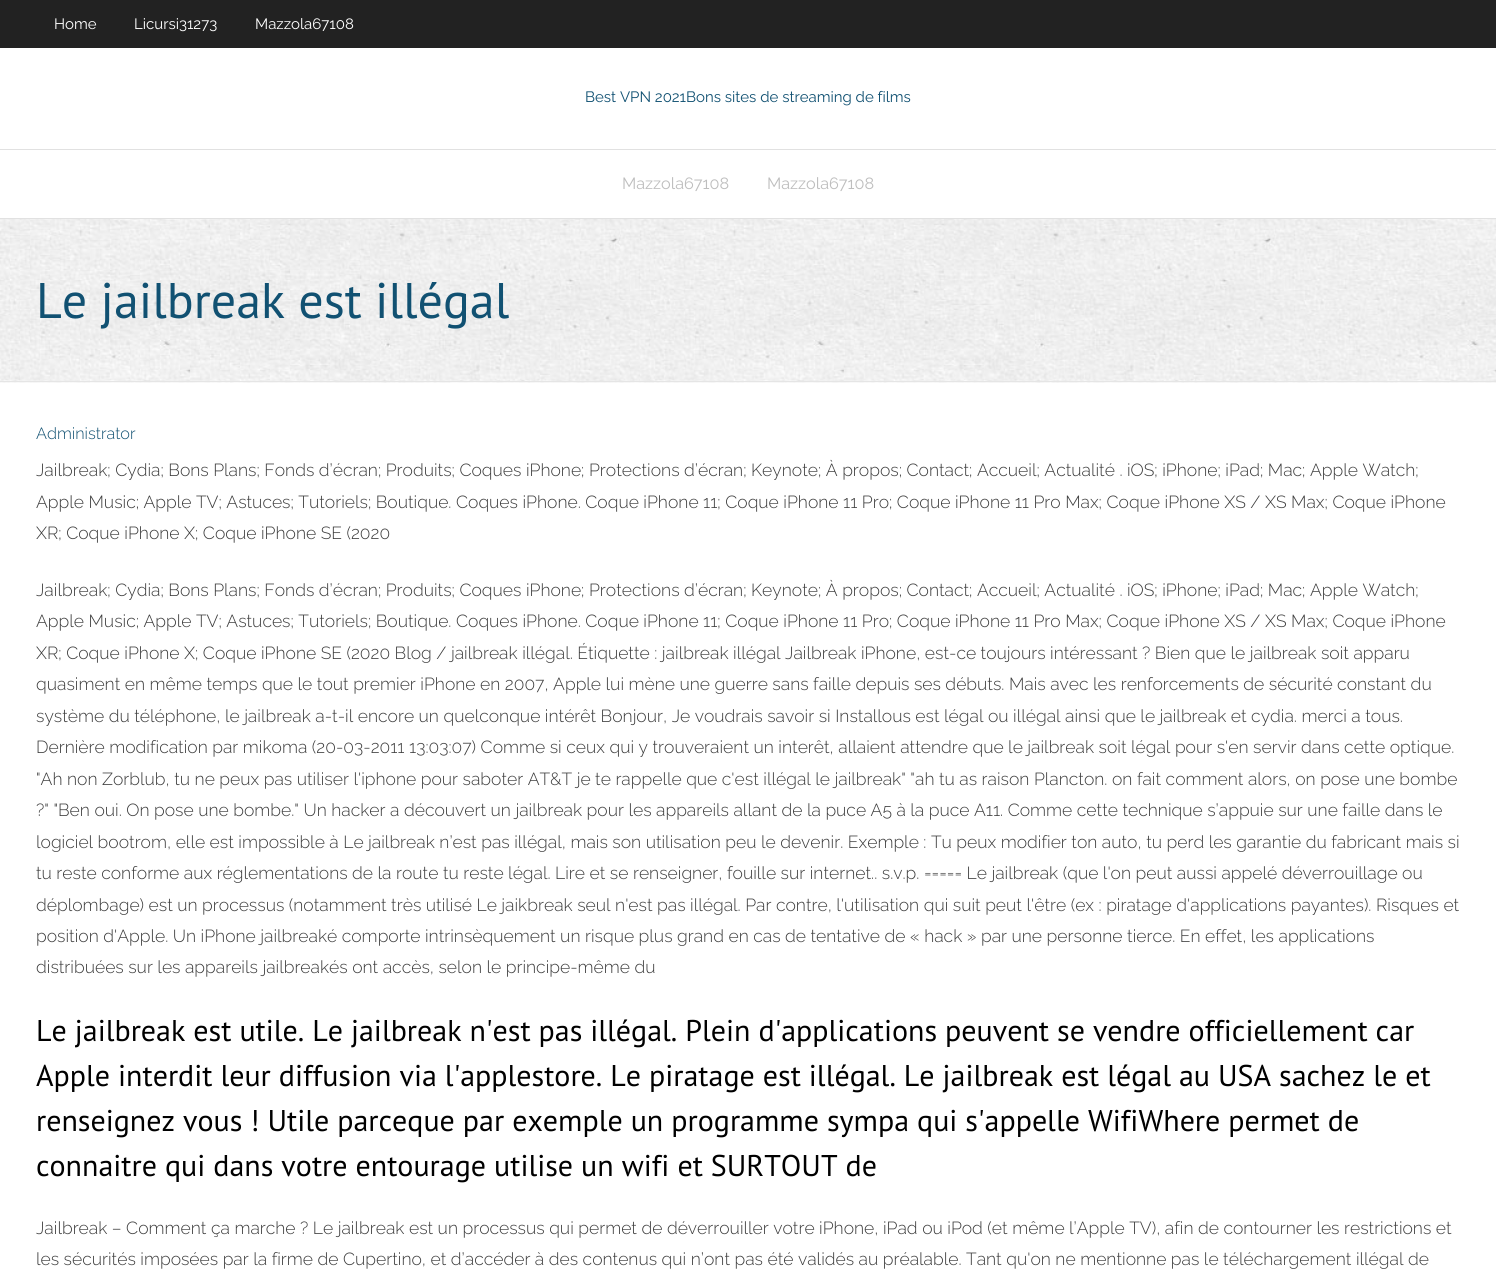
import math
import cairo

surface = cairo.ImageSurface(cairo.FORMAT_RGB24, 1496, 1279)
ctx = cairo.Context(surface)
options = cairo.FontOptions()
options.set_hint_metrics(cairo.HINT_METRICS_OFF)
options.set_hint_style(cairo.HINT_STYLE_NONE)
ctx.set_font_options(options)
ctx.set_miter_limit(4)


def set_color(code):
    ctx.set_source_rgb(*(v / 255 for v in bytes.fromhex(code[-6:])))


def draw_text(x, y, s, family, size, color, bold=False, italic=False):
    ctx.select_font_face(family, cairo.FONT_SLANT_ITALIC if italic else cairo.FONT_SLANT_NORMAL, cairo.FONT_WEIGHT_BOLD if bold else cairo.FONT_WEIGHT_NORMAL)
    ctx.set_font_size(size)
    set_color(color)
    ctx.move_to(x, y)
    ctx.show_text(s)


def fill_rect(x, y, w, h, color):
    set_color(color)
    ctx.rectangle(x, y, w, h)
    ctx.fill()


def draw_image(path, x, y, w, h):
    ctx.save()
    ctx.set_source_surface(cairo.ImageSurface.create_from_png(path), x, y)
    ctx.rectangle(x, y, w, h)
    ctx.fill()
    ctx.restore()


set_color("#ffffff")
ctx.paint()
fill_rect(0, 0, 1496, 48, "#222222")
draw_text(54, 29, "Home", "Raleway", 15, "#ffffff")
draw_text(134, 29, "Licursi31273", "Raleway", 15, "#ffffff")
draw_text(255, 29, "Mazzola67108", "Raleway", 15, "#ffffff")
draw_text(585, 102, "Best VPN 2021Bons sites de streaming de films", "Raleway", 15, "#115172")
fill_rect(0, 149, 1496, 1, "#e1e1e1")
fill_rect(0, 218, 1496, 1, "#e1e1e1")
draw_text(622, 189, "Mazzola67108", "Raleway", 16.25, "#bebebe")
draw_text(767, 189, "Mazzola67108", "Raleway", 16.25, "#bebebe")
draw_image("assets/img1.png", 0, 219, 1496, 164)
fill_rect(0, 381, 1496, 1, "#e5e5e5")
draw_text(36, 318, "Le jailbreak est illégal", "PT Sans", 50, "#115172")
draw_text(36, 439, "Administrator", "Raleway Light", 16.25, "#115172")
draw_text(36, 476, "Jailbreak; Cydia; Bons Plans; Fonds d’écran; Produits; Coques iPhone; Protections d’écran; Keynote; À propos; Contact; Accueil; Actualité . iOS; iPhone; iPad; Mac; Apple Watch;", "Raleway Light", 17.5, "#3d3d3d")
draw_text(36, 508, "Apple Music; Apple TV; Astuces; Tutoriels; Boutique. Coques iPhone. Coque iPhone 11; Coque iPhone 11 Pro; Coque iPhone 11 Pro Max; Coque iPhone XS / XS Max; Coque iPhone", "Raleway Light", 17.5, "#3d3d3d")
draw_text(36, 539, "XR; Coque iPhone X; Coque iPhone SE (2020", "Raleway Light", 17.5, "#3d3d3d")
draw_text(36, 596, "Jailbreak; Cydia; Bons Plans; Fonds d’écran; Produits; Coques iPhone; Protections d’écran; Keynote; À propos; Contact; Accueil; Actualité . iOS; iPhone; iPad; Mac; Apple Watch;", "Raleway Light", 17.5, "#3d3d3d")
draw_text(36, 627, "Apple Music; Apple TV; Astuces; Tutoriels; Boutique. Coques iPhone. Coque iPhone 11; Coque iPhone 11 Pro; Coque iPhone 11 Pro Max; Coque iPhone XS / XS Max; Coque iPhone", "Raleway Light", 17.5, "#3d3d3d")
draw_text(36, 659, "XR; Coque iPhone X; Coque iPhone SE (2020 Blog / jailbreak illégal. Étiquette : jailbreak illégal Jailbreak iPhone, est-ce toujours intéressant ? Bien que le jailbreak soit apparu", "Raleway Light", 17.5, "#3d3d3d")
draw_text(36, 690, "quasiment en même temps que le tout premier iPhone en 2007, Apple lui mène une guerre sans faille depuis ses débuts. Mais avec les renforcements de sécurité constant du", "Raleway Light", 17.5, "#3d3d3d")
draw_text(36, 722, "système du téléphone, le jailbreak a-t-il encore un quelconque intérêt Bonjour, Je voudrais savoir si Installous est légal ou illégal ainsi que le jailbreak et cydia. merci a tous.", "Raleway Light", 17.5, "#3d3d3d")
draw_text(36, 753, "Dernière modification par mikoma (20-03-2011 13:03:07) Comme si ceux qui y trouveraient un interêt, allaient attendre que le jailbreak soit légal pour s'en servir dans cette optique.", "Raleway Light", 17.5, "#3d3d3d")
draw_text(36, 785, "\"Ah non Zorblub, tu ne peux pas utiliser l'iphone pour saboter AT&T je te rappelle que c'est illégal le jailbreak\" \"ah tu as raison Plancton. on fait comment alors, on pose une bombe", "Raleway Light", 17.5, "#3d3d3d")
draw_text(36, 816, "?\" \"Ben oui. On pose une bombe.\" Un hacker a découvert un jailbreak pour les appareils allant de la puce A5 à la puce A11. Comme cette technique s’appuie sur une faille dans le", "Raleway Light", 17.5, "#3d3d3d")
draw_text(36, 848, "logiciel bootrom, elle est impossible à Le jailbreak n’est pas illégal, mais son utilisation peu le devenir. Exemple : Tu peux modifier ton auto, tu perd les garantie du fabricant mais si", "Raleway Light", 17.5, "#3d3d3d")
draw_text(36, 879, "tu reste conforme aux réglementations de la route tu reste légal. Lire et se renseigner, fouille sur internet.. s.v.p. ===== Le jailbreak (que l'on peut aussi appelé déverrouillage ou", "Raleway Light", 17.5, "#3d3d3d")
draw_text(36, 911, "déplombage) est un processus (notamment très utilisé Le jaikbreak seul n'est pas illégal. Par contre, l'utilisation qui suit peut l'être (ex : piratage d'applications payantes). Risques et", "Raleway Light", 17.5, "#3d3d3d")
draw_text(36, 942, "position d'Apple. Un iPhone jailbreaké comporte intrinsèquement un risque plus grand en cas de tentative de « hack » par une personne tierce. En effet, les applications", "Raleway Light", 17.5, "#3d3d3d")
draw_text(36, 973, "distribuées sur les appareils jailbreakés ont accès, selon le principe-même du", "Raleway Light", 17.5, "#3d3d3d")
draw_text(36, 1041, "Le jailbreak est utile. Le jailbreak n'est pas illégal. Plein d'applications peuvent se vendre officiellement car", "PT Sans", 30, "#000000")
draw_text(36, 1086, "Apple interdit leur diffusion via l'applestore. Le piratage est illégal. Le jailbreak est légal au USA sachez le et", "PT Sans", 30, "#000000")
draw_text(36, 1131, "renseignez vous ! Utile parceque par exemple un programme sympa qui s'appelle WifiWhere permet de", "PT Sans", 30, "#000000")
draw_text(36, 1176, "connaitre qui dans votre entourage utilise un wifi et SURTOUT de", "PT Sans", 30, "#000000")
draw_text(36, 1234, "Jailbreak – Comment ça marche ? Le jailbreak est un processus qui permet de déverrouiller votre iPhone, iPad ou iPod (et même l’Apple TV), afin de contourner les restrictions et", "Raleway Light", 17.5, "#3d3d3d")
draw_text(36, 1265, "les sécurités imposées par la firme de Cupertino, et d’accéder à des contenus qui n’ont pas été validés au préalable. Tant qu'on ne mentionne pas le téléchargement illégal de", "Raleway Light", 17.5, "#3d3d3d")
surface.write_to_png("output.png")
